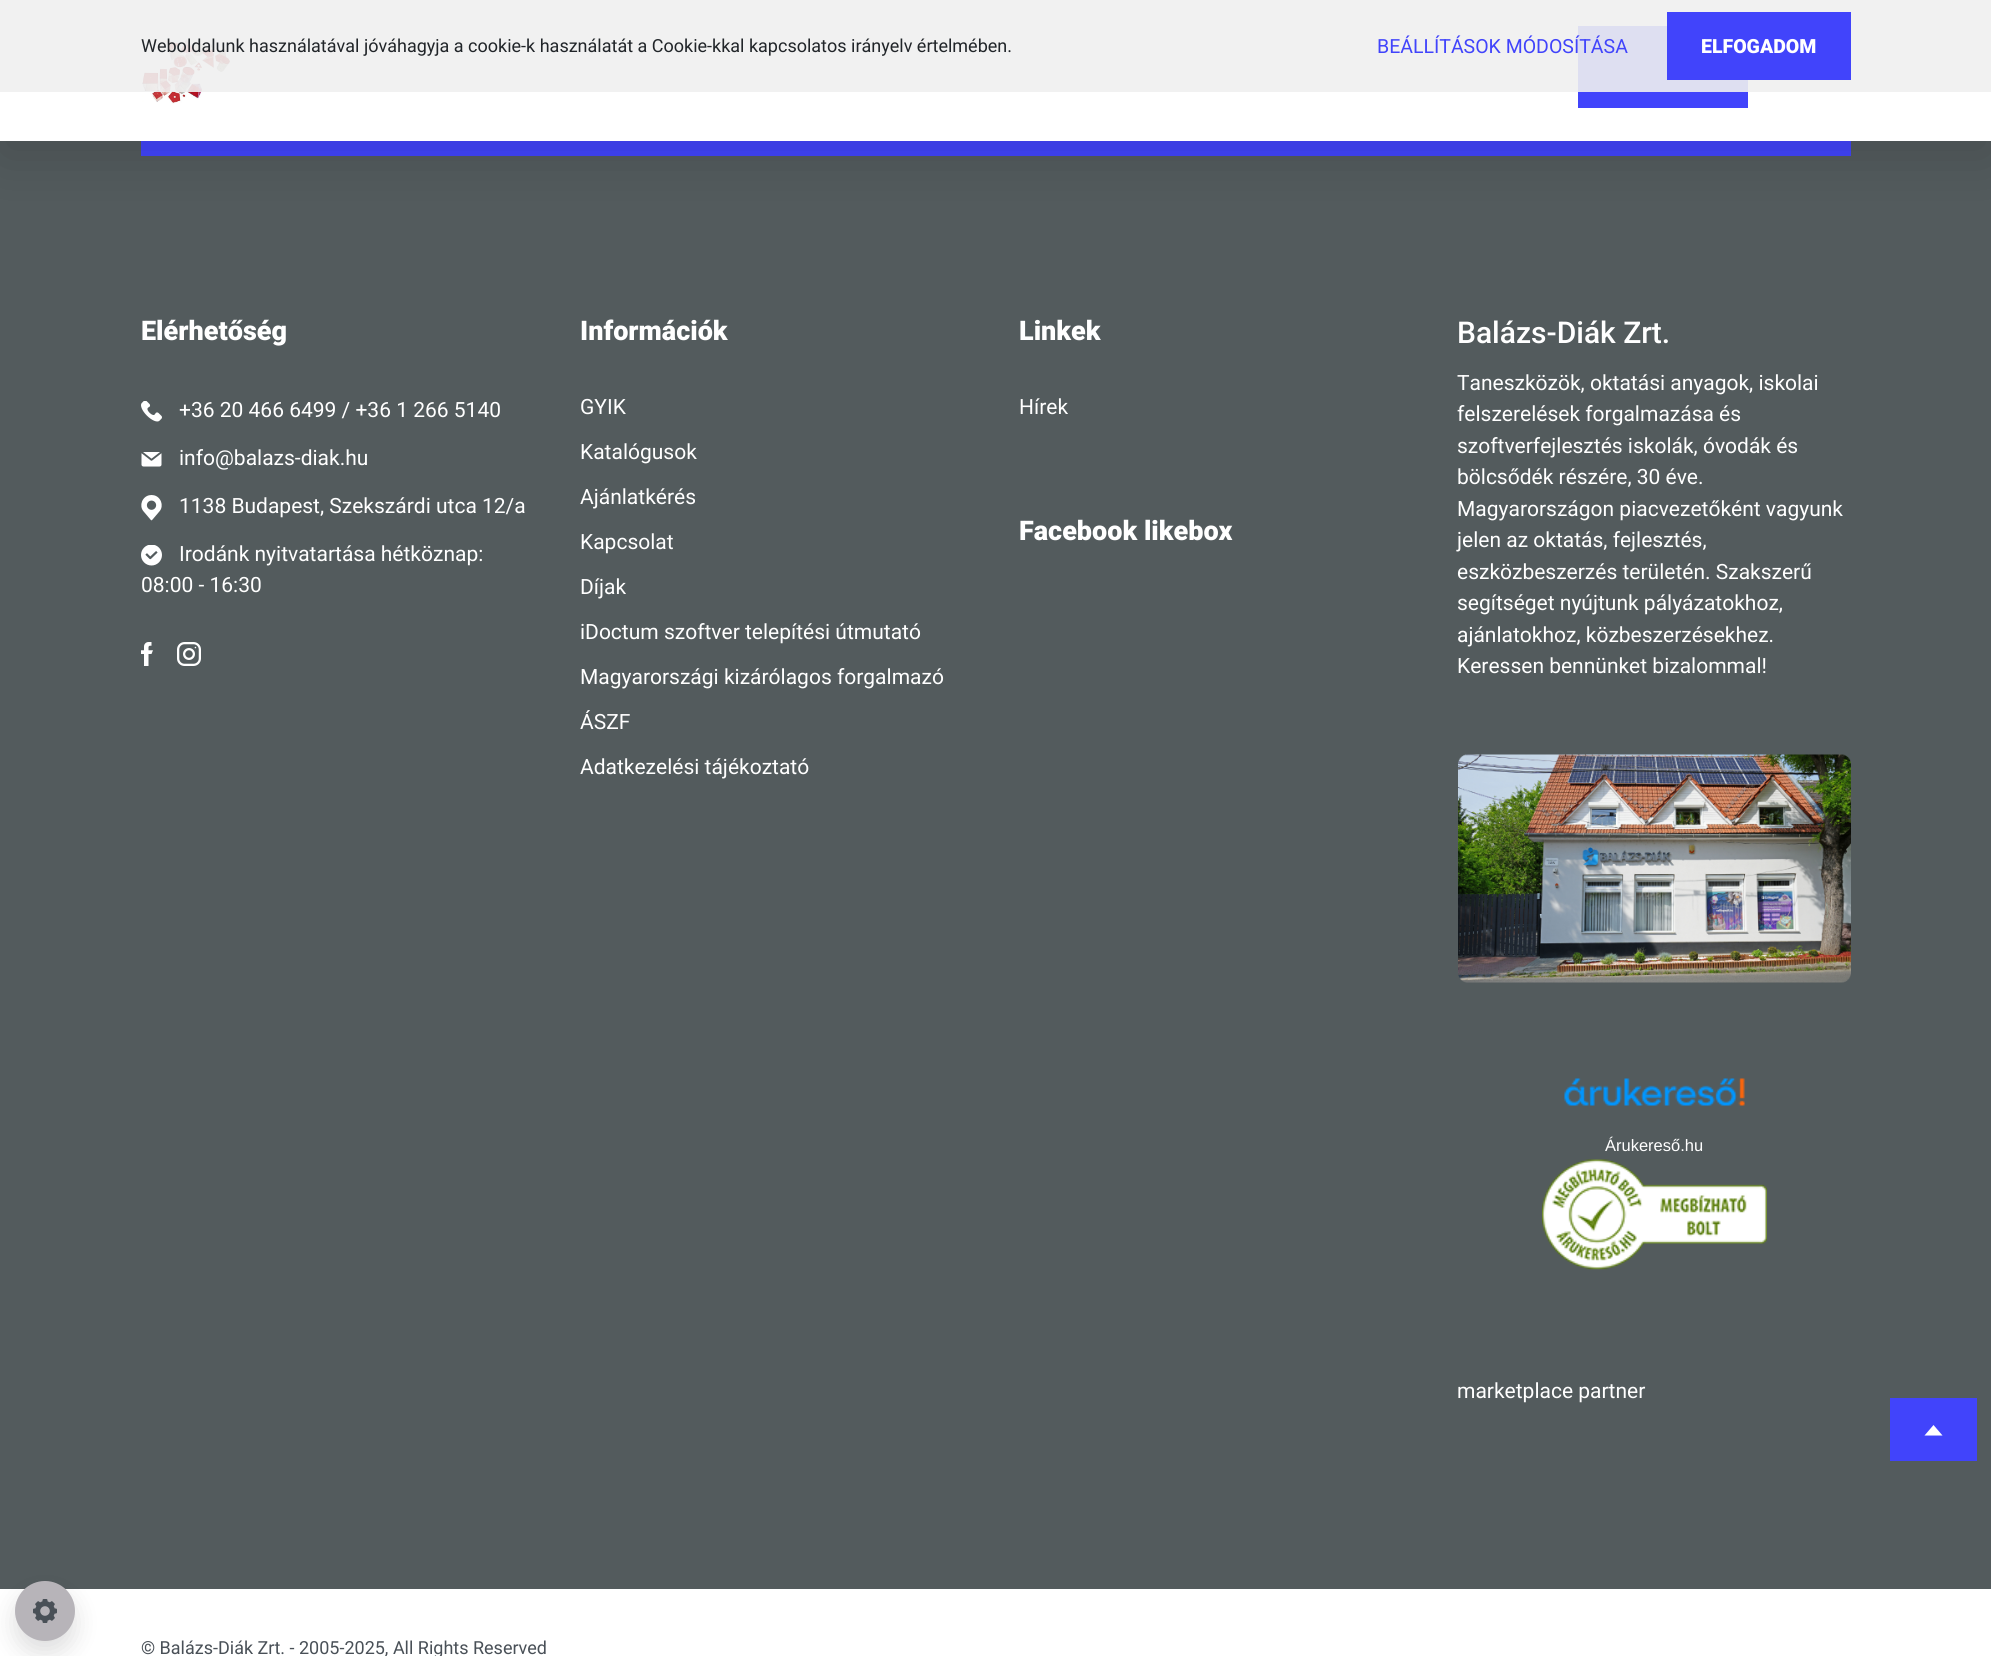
import math
import cairo

surface = cairo.ImageSurface(cairo.FORMAT_RGB24, 1991, 1656)
ctx = cairo.Context(surface)
options = cairo.FontOptions()
options.set_hint_metrics(cairo.HINT_METRICS_OFF)
options.set_hint_style(cairo.HINT_STYLE_NONE)
ctx.set_font_options(options)
ctx.set_miter_limit(4)


def set_color(code):
    ctx.set_source_rgb(*(v / 255 for v in bytes.fromhex(code[-6:])))


def draw_text(x, y, s, family, size, color, bold=False, italic=False):
    ctx.select_font_face(family, cairo.FONT_SLANT_ITALIC if italic else cairo.FONT_SLANT_NORMAL, cairo.FONT_WEIGHT_BOLD if bold else cairo.FONT_WEIGHT_NORMAL)
    ctx.set_font_size(size)
    set_color(color)
    ctx.move_to(x, y)
    ctx.show_text(s)


def fill_rect(x, y, w, h, color):
    set_color(color)
    ctx.rectangle(x, y, w, h)
    ctx.fill()


def rounded_rect(x, y, w, h, r):
    ctx.new_sub_path()
    for i, (u, v) in enumerate([(x + w - r, y + h - r), (x + r, y + h - r), (x + r, y + r), (x + w - r, y + r)]):
        ctx.arc(u, v, r, i * math.pi / 2, (i + 1) * math.pi / 2)
    ctx.close_path()


def draw_shadow(x, y, w, h, r, blur, alpha):
    ctx.push_group_with_content(cairo.CONTENT_ALPHA)
    ctx.set_operator(cairo.OPERATOR_SOURCE)
    for i in range(15, -16, -2):
        e = blur * i / 6
        if min(w, h) + 2 * e > 0:
            ctx.set_source_rgba(0, 0, 0, alpha * math.erfc((i - 1) / 8.5) / 2)
            rounded_rect(x - e, y - e, w + 2 * e, h + 2 * e, max(0, min(r + e + blur * .6, min(w, h) / 2 + e)))
            ctx.fill()
    ctx.mask(ctx.pop_group())


def draw_image(path, x, y, w, h):
    ctx.save()
    ctx.set_source_surface(cairo.ImageSurface.create_from_png(path), x, y)
    ctx.rectangle(x, y, w, h)
    ctx.fill()
    ctx.restore()


set_color("#ffffff")
ctx.paint()
fill_rect(0, 141, 1991, 1448, "#535b5d")
fill_rect(141, 141, 1710, 15, "#4144fb")
set_color("#000000")
draw_shadow(0, 15, 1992, 141, 0, 30, 0.15)
fill_rect(0, 0, 1991, 141, "#ffffff")
draw_image("assets/img2.png", 142, 39, 88, 65)
fill_rect(1578, 26, 170, 82, "#4144fb")
ctx.set_source_rgba(0.941, 0.941, 0.941, 0.9)
ctx.rectangle(0, 0, 1991, 92)
ctx.fill()
draw_text(141, 52, "Weboldalunk használatával jóváhagyja a cookie-k használatát a Cookie-kkal kapcsolatos irányelv értelmében.", "Roboto", 18, "#212529")
draw_text(1377, 53, "BEÁLLÍTÁSOK MÓDOSÍTÁSA", "Roboto", 19.5, "#4144fb")
fill_rect(1667, 12, 184, 68, "#4144fb")
draw_text(1701, 53, "ELFOGADOM", "Roboto Black", 19.5, "#ffffff")
set_color("#282729")
draw_shadow(15, 1593, 60, 60, 30, 12, 0.15)
set_color("#b7b4b9")
ctx.arc(45, 1611, 30, 0, 2 * math.pi)
ctx.fill()
draw_image("assets/img1.png", 33, 1599, 24, 24)
draw_text(141, 340, "Elérhetőség", "Roboto Black", 27, "#ffffff")
draw_image("assets/img3.png", 141, 401, 21, 21)
draw_text(179, 417, "+36 20 466 6499 / +36 1 266 5140", "Roboto", 21, "#ffffff")
draw_image("assets/img4.png", 141, 452, 21, 15)
draw_text(179, 465, "info@balazs-diak.hu", "Roboto", 21, "#ffffff")
draw_image("assets/img5.png", 141, 495, 21, 26)
draw_text(179, 513, "1138 Budapest, Szekszárdi utca 12/a", "Roboto", 21, "#ffffff")
draw_image("assets/img6.png", 141, 545, 21, 21)
draw_text(179, 561, "Irodánk nyitvatartása hétköznap:", "Roboto", 21, "#ffffff")
draw_text(141, 592, "08:00 - 16:30", "Roboto", 21, "#ffffff")
draw_image("assets/img7.png", 141, 642, 12, 24)
draw_image("assets/img8.png", 177, 642, 24, 24)
draw_text(580, 340, "Információk", "Roboto Black", 27, "#ffffff")
draw_text(580, 414, "GYIK", "Roboto", 21, "#ffffff")
draw_text(580, 459, "Katalógusok", "Roboto", 21, "#ffffff")
draw_text(580, 504, "Ajánlatkérés", "Roboto", 21, "#ffffff")
draw_text(580, 549, "Kapcsolat", "Roboto", 21, "#ffffff")
draw_text(580, 594, "Díjak", "Roboto", 21, "#ffffff")
draw_text(580, 639, "iDoctum szoftver telepítési útmutató", "Roboto", 21, "#ffffff")
draw_text(580, 684, "Magyarországi kizárólagos forgalmazó", "Roboto", 21, "#ffffff")
draw_text(580, 729, "ÁSZF", "Roboto", 21, "#ffffff")
draw_text(580, 774, "Adatkezelési tájékoztató", "Roboto", 21, "#ffffff")
draw_text(1019, 340, "Linkek", "Roboto Black", 27, "#ffffff")
draw_text(1019, 414, "Hírek", "Roboto", 21, "#ffffff")
draw_text(1019, 540, "Facebook likebox", "Roboto Black", 27, "#ffffff")
draw_text(1457, 343, "Balázs-Diák Zrt.", "Roboto Medium", 30, "#ffffff")
draw_text(1457, 390, "Taneszközök, oktatási anyagok, iskolai", "Roboto", 21, "#ffffff")
draw_text(1457, 421, "felszerelések forgalmazása és", "Roboto", 21, "#ffffff")
draw_text(1457, 453, "szoftverfejlesztés iskolák, óvodák és", "Roboto", 21, "#ffffff")
draw_text(1457, 484, "bölcsődék részére, 30 éve.", "Roboto", 21, "#ffffff")
draw_text(1457, 516, "Magyarországon piacvezetőként vagyunk", "Roboto", 21, "#ffffff")
draw_text(1457, 547, "jelen az oktatás, fejlesztés,", "Roboto", 21, "#ffffff")
draw_text(1457, 579, "eszközbeszerzés területén. Szakszerű", "Roboto", 21, "#ffffff")
draw_text(1457, 610, "segítséget nyújtunk pályázatokhoz,", "Roboto", 21, "#ffffff")
draw_text(1457, 642, "ajánlatokhoz, közbeszerzésekhez.", "Roboto", 21, "#ffffff")
draw_text(1457, 673, "Keressen bennünket bizalommal!", "Roboto", 21, "#ffffff")
draw_image("assets/img9.png", 1458, 754, 393, 229)
draw_image("assets/img10.png", 1564, 1078, 181, 28)
draw_text(1605, 1151, "Árukereső.hu", "Liberation Sans", 16.5, "#ffffff")
draw_image("assets/img11.png", 1542, 1159, 225, 111)
draw_text(1457, 1398, "marketplace partner", "Roboto", 21, "#ffffff")
fill_rect(1890, 1398, 87, 63, "#4144fb")
set_color("#ffffff")
ctx.new_path()
ctx.move_to(1942.5, 1435.5)
ctx.line_to(1933.5, 1425)
ctx.line_to(1924.5, 1435.5)
ctx.close_path()
ctx.fill()
draw_text(141, 1654, "© Balázs-Diák Zrt. - 2005-2025, All Rights Reserved", "Roboto", 18, "#495057")
surface.write_to_png("output.png")
